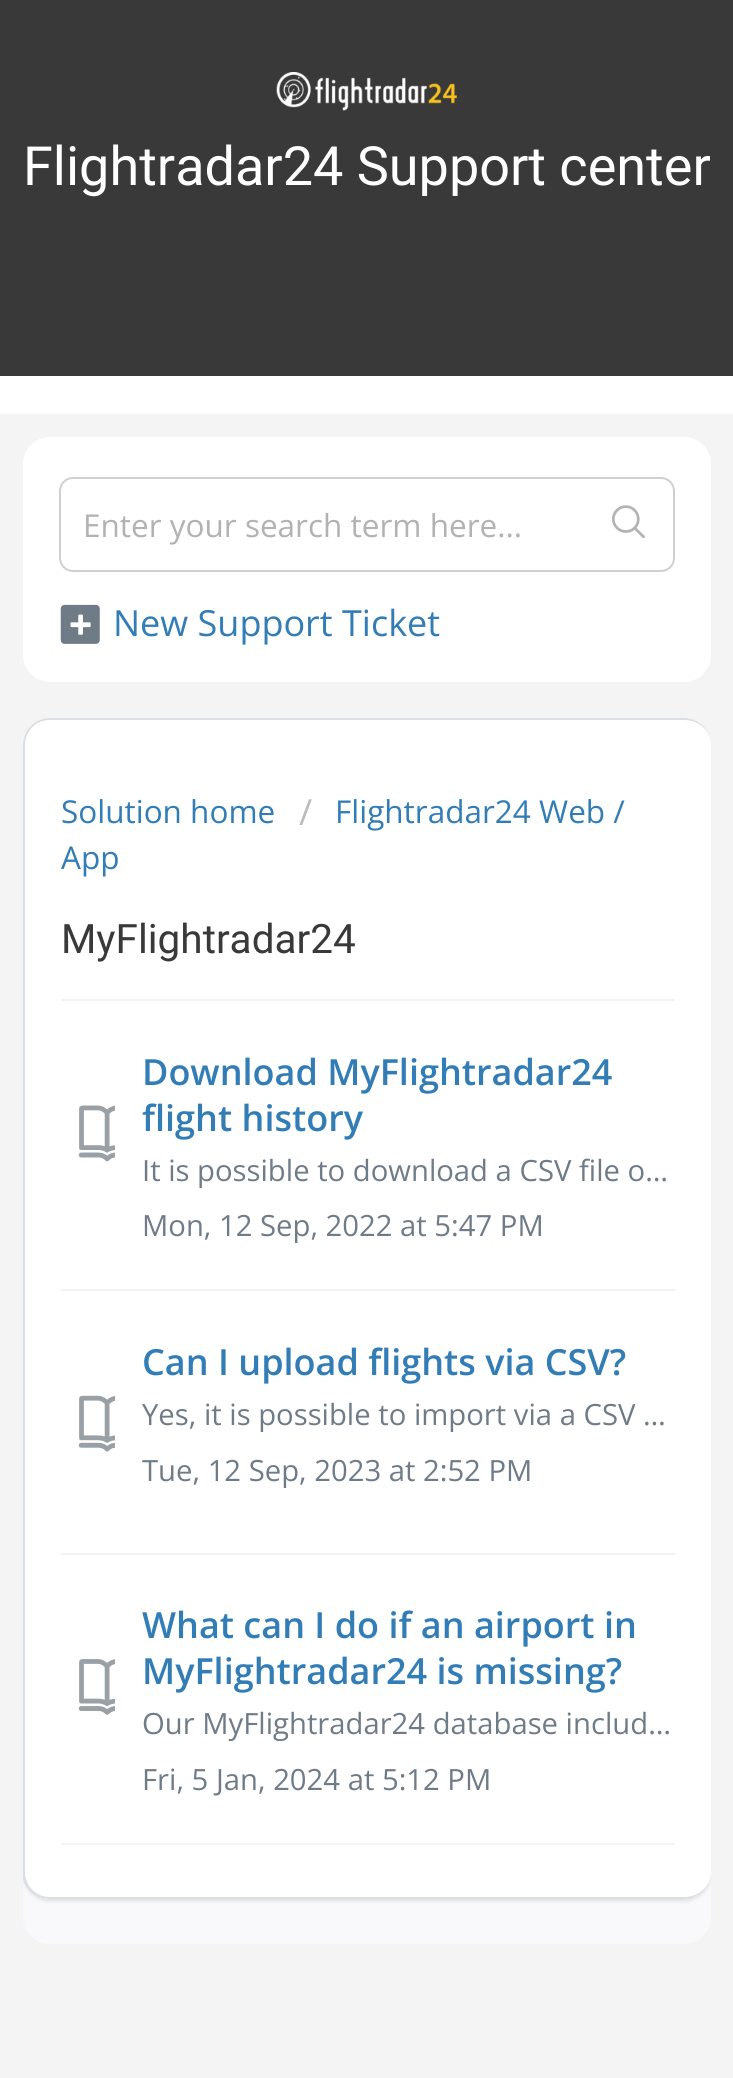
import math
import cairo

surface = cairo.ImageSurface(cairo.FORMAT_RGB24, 733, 2078)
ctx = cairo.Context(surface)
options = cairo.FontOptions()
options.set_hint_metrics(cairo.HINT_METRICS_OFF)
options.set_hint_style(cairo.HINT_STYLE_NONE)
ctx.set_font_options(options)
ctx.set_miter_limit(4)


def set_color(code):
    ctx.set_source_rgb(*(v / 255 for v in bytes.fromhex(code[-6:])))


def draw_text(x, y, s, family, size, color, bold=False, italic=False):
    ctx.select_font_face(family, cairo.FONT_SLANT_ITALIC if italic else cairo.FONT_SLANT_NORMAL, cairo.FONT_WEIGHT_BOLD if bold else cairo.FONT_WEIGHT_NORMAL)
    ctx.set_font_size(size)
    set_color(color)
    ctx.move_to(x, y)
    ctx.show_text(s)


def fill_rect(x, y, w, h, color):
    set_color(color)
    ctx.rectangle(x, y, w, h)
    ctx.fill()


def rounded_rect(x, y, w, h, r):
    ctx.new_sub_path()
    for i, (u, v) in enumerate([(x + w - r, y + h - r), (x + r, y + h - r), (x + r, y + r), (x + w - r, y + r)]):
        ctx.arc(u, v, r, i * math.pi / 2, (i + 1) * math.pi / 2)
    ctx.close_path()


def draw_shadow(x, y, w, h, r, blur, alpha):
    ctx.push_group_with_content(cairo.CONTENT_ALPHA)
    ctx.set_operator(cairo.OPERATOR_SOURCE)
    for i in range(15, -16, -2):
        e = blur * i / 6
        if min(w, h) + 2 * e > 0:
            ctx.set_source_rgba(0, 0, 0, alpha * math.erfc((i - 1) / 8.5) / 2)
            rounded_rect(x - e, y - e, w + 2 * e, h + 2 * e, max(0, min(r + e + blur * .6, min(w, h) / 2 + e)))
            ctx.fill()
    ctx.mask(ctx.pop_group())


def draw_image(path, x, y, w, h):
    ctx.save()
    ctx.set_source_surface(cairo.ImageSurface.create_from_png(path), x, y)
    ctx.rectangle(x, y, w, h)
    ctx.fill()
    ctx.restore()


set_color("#f4f4f4")
ctx.paint()
fill_rect(0, 0, 733, 376, "#393939")
draw_image("assets/img1.png", 276, 72, 181, 39)
draw_text(23, 185, "Flightradar24 Support center", "Roboto", 54, "#ffffff")
fill_rect(0, 376, 733, 38, "#ffffff")
rounded_rect(23, 437, 688, 245, 27)
ctx.fill()
rounded_rect(60, 478, 614, 93, 13)
set_color("#d1d0d0")
ctx.stroke()
draw_text(83, 537, "Enter your search term here...", "Open Sans", 31.5, "#b2b2b2")
draw_image("assets/img2.png", 612, 505, 33, 34)
draw_image("assets/img3.png", 60, 604, 40, 40)
draw_text(113, 636, "New Support Ticket", "Open Sans", 36, "#327db6")
set_color("#f9f9fb")
rounded_rect(23, 718, 688, 1226, 27)
ctx.fill()
ctx.save()
rounded_rect(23, 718, 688, 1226, 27)
ctx.clip()
set_color("#3f3f44")
draw_shadow(23, 720, 688, 1181, 27, 2, 0.15)
ctx.restore()
set_color("#ffffff")
rounded_rect(23, 718, 688, 1181, 27)
ctx.fill()
set_color("#dadfe3")
ctx.new_path()
ctx.move_to(50, 718)
ctx.line_to(684, 718)
ctx.curve_to(699, 718, 711, 730, 711, 745)
ctx.curve_to(711, 731, 699, 720, 684, 720)
ctx.line_to(50, 720)
ctx.curve_to(36, 720, 25, 731, 25, 745)
ctx.line_to(25, 1872)
ctx.curve_to(25, 1886, 36, 1897, 50, 1897)
ctx.line_to(684, 1897)
ctx.curve_to(699, 1897, 711, 1886, 711, 1872)
ctx.curve_to(711, 1887, 699, 1899, 684, 1899)
ctx.line_to(50, 1899)
ctx.curve_to(37, 1899, 26, 1891, 23, 1879)
ctx.line_to(23, 745)
ctx.curve_to(23, 730, 35, 718, 50, 718)
ctx.close_path()
ctx.fill()
draw_text(61, 823, "Solution home", "Open Sans", 31.5, "#327db6")
draw_text(299, 825, "/", "Open Sans", 36, "#bbbbbb")
draw_text(335, 823, "Flightradar24 Web /", "Open Sans", 31.5, "#327db6")
draw_text(61, 869, "App", "Open Sans", 31.5, "#327db6")
draw_text(61, 953, "MyFlightradar24", "Roboto", 40.5, "#393939")
fill_rect(61, 1843, 614, 2, "#f3f3f3")
fill_rect(61, 999, 614, 2, "#f3f3f3")
draw_image("assets/img4.png", 78, 1105, 37, 57)
draw_text(142, 1085, "Download MyFlightradar24", "Open Sans SemiBold", 36, "#327db6")
draw_text(142, 1131, "flight history", "Open Sans SemiBold", 36, "#327db6")
draw_text(142, 1181, "It is possible to download a CSV file o…", "Open Sans", 29.25, "#6f7c87")
draw_text(142, 1236, "Mon, 12 Sep, 2022 at 5:47 PM", "Open Sans", 29.25, "#6f7c87")
fill_rect(61, 1289, 614, 2, "#f3f3f3")
draw_text(142, 1375, "Can I upload flights via CSV?", "Open Sans SemiBold", 36, "#327db6")
draw_image("assets/img5.png", 78, 1395, 37, 57)
draw_text(142, 1425, "Yes, it is possible to import via a CSV …", "Open Sans", 29.25, "#6f7c87")
draw_text(142, 1481, "Tue, 12 Sep, 2023 at 2:52 PM", "Open Sans", 29.25, "#6f7c87")
fill_rect(61, 1553, 614, 2, "#f3f3f3")
draw_image("assets/img6.png", 78, 1659, 37, 56)
draw_text(142, 1638, "What can I do if an airport in", "Open Sans SemiBold", 36, "#327db6")
draw_text(142, 1684, "MyFlightradar24 is missing?", "Open Sans SemiBold", 36, "#327db6")
draw_text(142, 1734, "Our MyFlightradar24 database includ…", "Open Sans", 29.25, "#6f7c87")
draw_text(142, 1790, "Fri, 5 Jan, 2024 at 5:12 PM", "Open Sans", 29.25, "#6f7c87")
surface.write_to_png("output.png")
